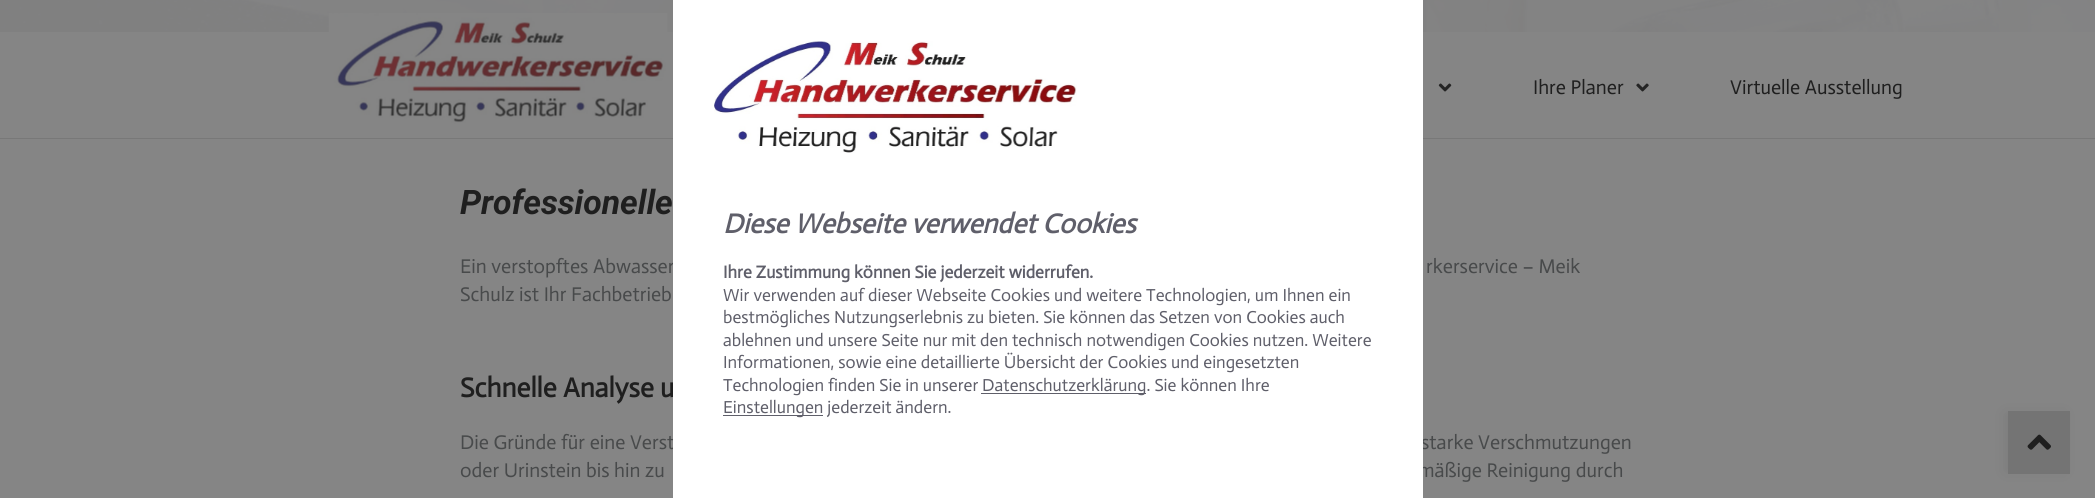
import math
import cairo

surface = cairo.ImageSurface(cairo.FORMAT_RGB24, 2095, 498)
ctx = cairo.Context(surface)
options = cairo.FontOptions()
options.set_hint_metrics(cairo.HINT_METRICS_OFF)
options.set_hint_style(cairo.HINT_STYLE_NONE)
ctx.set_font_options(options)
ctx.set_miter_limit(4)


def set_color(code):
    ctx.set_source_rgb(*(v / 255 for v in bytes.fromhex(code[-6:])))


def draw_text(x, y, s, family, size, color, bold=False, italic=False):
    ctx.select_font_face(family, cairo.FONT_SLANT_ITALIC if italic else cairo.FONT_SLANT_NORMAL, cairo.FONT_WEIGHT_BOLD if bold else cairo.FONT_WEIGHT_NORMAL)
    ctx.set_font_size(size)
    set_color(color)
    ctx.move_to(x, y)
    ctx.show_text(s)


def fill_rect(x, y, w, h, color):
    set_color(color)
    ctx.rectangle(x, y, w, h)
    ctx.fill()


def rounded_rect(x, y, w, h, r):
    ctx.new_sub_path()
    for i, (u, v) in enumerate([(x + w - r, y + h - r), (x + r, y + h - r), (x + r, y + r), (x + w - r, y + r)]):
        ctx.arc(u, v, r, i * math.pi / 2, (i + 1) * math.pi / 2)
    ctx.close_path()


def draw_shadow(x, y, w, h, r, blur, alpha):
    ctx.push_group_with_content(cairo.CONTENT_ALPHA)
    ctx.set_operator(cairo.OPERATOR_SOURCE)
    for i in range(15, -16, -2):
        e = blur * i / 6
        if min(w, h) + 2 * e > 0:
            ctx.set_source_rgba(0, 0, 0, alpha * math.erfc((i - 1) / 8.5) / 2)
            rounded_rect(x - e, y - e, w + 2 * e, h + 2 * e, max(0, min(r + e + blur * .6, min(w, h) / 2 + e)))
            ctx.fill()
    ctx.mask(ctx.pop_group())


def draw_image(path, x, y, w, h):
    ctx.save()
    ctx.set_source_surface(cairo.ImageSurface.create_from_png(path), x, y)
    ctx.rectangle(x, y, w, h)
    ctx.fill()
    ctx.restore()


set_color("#858585")
ctx.paint()
draw_image("assets/img1.png", 0, 0, 2095, 32)
ctx.set_source_rgba(0.522, 0.522, 0.522, 0.95)
ctx.rectangle(0, 0, 2095, 32)
ctx.fill()
ctx.set_source_rgba(0.471, 0.471, 0.471, 0.95)
ctx.rectangle(0, 138, 2095, 1)
ctx.fill()
draw_image("assets/img2.png", 328, 13, 340, 112)
draw_image("assets/img3.png", 1438, 83, 14, 9)
draw_text(1533, 94, "Ihre Planer", "Actor", 20, "#1f1f1f")
draw_image("assets/img4.png", 1636, 83, 13, 9)
draw_text(1730, 94, "Virtuelle Ausstellung", "Actor", 20, "#1f1f1f")
draw_text(460, 214, "Professionelle", "Roboto", 33.75, "#1f1f1f", bold=True, italic=True)
draw_text(460, 273, "Ein verstopftes Abwasser", "Actor", 20, "#484a4b")
draw_text(1426, 273, "rkerservice – Meik", "Actor", 20, "#484a4b")
draw_text(460, 301, "Schulz ist Ihr Fachbetrieb", "Actor", 20, "#484a4b")
draw_text(460, 397, "Schnelle Analyse u", "Actor", 27.5, "#1f1f1f", bold=True)
draw_text(460, 449, "Die Gründe für eine Verst", "Actor", 20, "#484a4b")
draw_text(1421, 449, "starke Verschmutzungen", "Actor", 20, "#484a4b")
draw_text(460, 477, "oder Urinstein bis hin zu", "Actor", 20, "#484a4b")
draw_text(1418, 477, "mäßige Reinigung durch", "Actor", 20, "#484a4b")
fill_rect(673, 0, 750, 498, "#ffffff")
draw_image("assets/img5.png", 714, 41, 363, 112)
draw_text(723, 233, "Diese Webseite verwendet Cookies", "Actor", 27.5, "#5f5f6a", bold=True, italic=True)
draw_text(723, 278, "Ihre Zustimmung können Sie jederzeit widerrufen.", "Actor", 17.5, "#5f5f6a", bold=True)
draw_text(723, 301, "Wir verwenden auf dieser Webseite Cookies und weitere Technologien, um Ihnen ein", "Actor", 17.5, "#5f5f6a")
draw_text(723, 323, "bestmögliches Nutzungserlebnis zu bieten. Sie können das Setzen von Cookies auch", "Actor", 17.5, "#5f5f6a")
draw_text(723, 346, "ablehnen und unsere Seite nur mit den technisch notwendigen Cookies nutzen. Weitere", "Actor", 17.5, "#5f5f6a")
draw_text(723, 368, "Informationen, sowie eine detaillierte Übersicht der Cookies und eingesetzten", "Actor", 17.5, "#5f5f6a")
draw_text(723, 391, "Technologien finden Sie in unserer", "Actor", 17.5, "#5f5f6a")
fill_rect(981, 393, 165, 1, "#5f5f6a")
draw_text(982, 391, "Datenschutzerklärung. Sie können Ihre", "Actor", 17.5, "#5f5f6a")
fill_rect(723, 415, 100, 1, "#5f5f6a")
draw_text(723, 413, "Einstellungen jederzeit ändern.", "Actor", 17.5, "#5f5f6a")
set_color("#1f1f1f")
draw_shadow(2006, 414, 58, 57, 0, 6, 0.1)
fill_rect(2008, 411, 62, 63, "#747474")
draw_image("assets/img6.png", 2027, 434, 24, 16)
surface.write_to_png("output.png")
